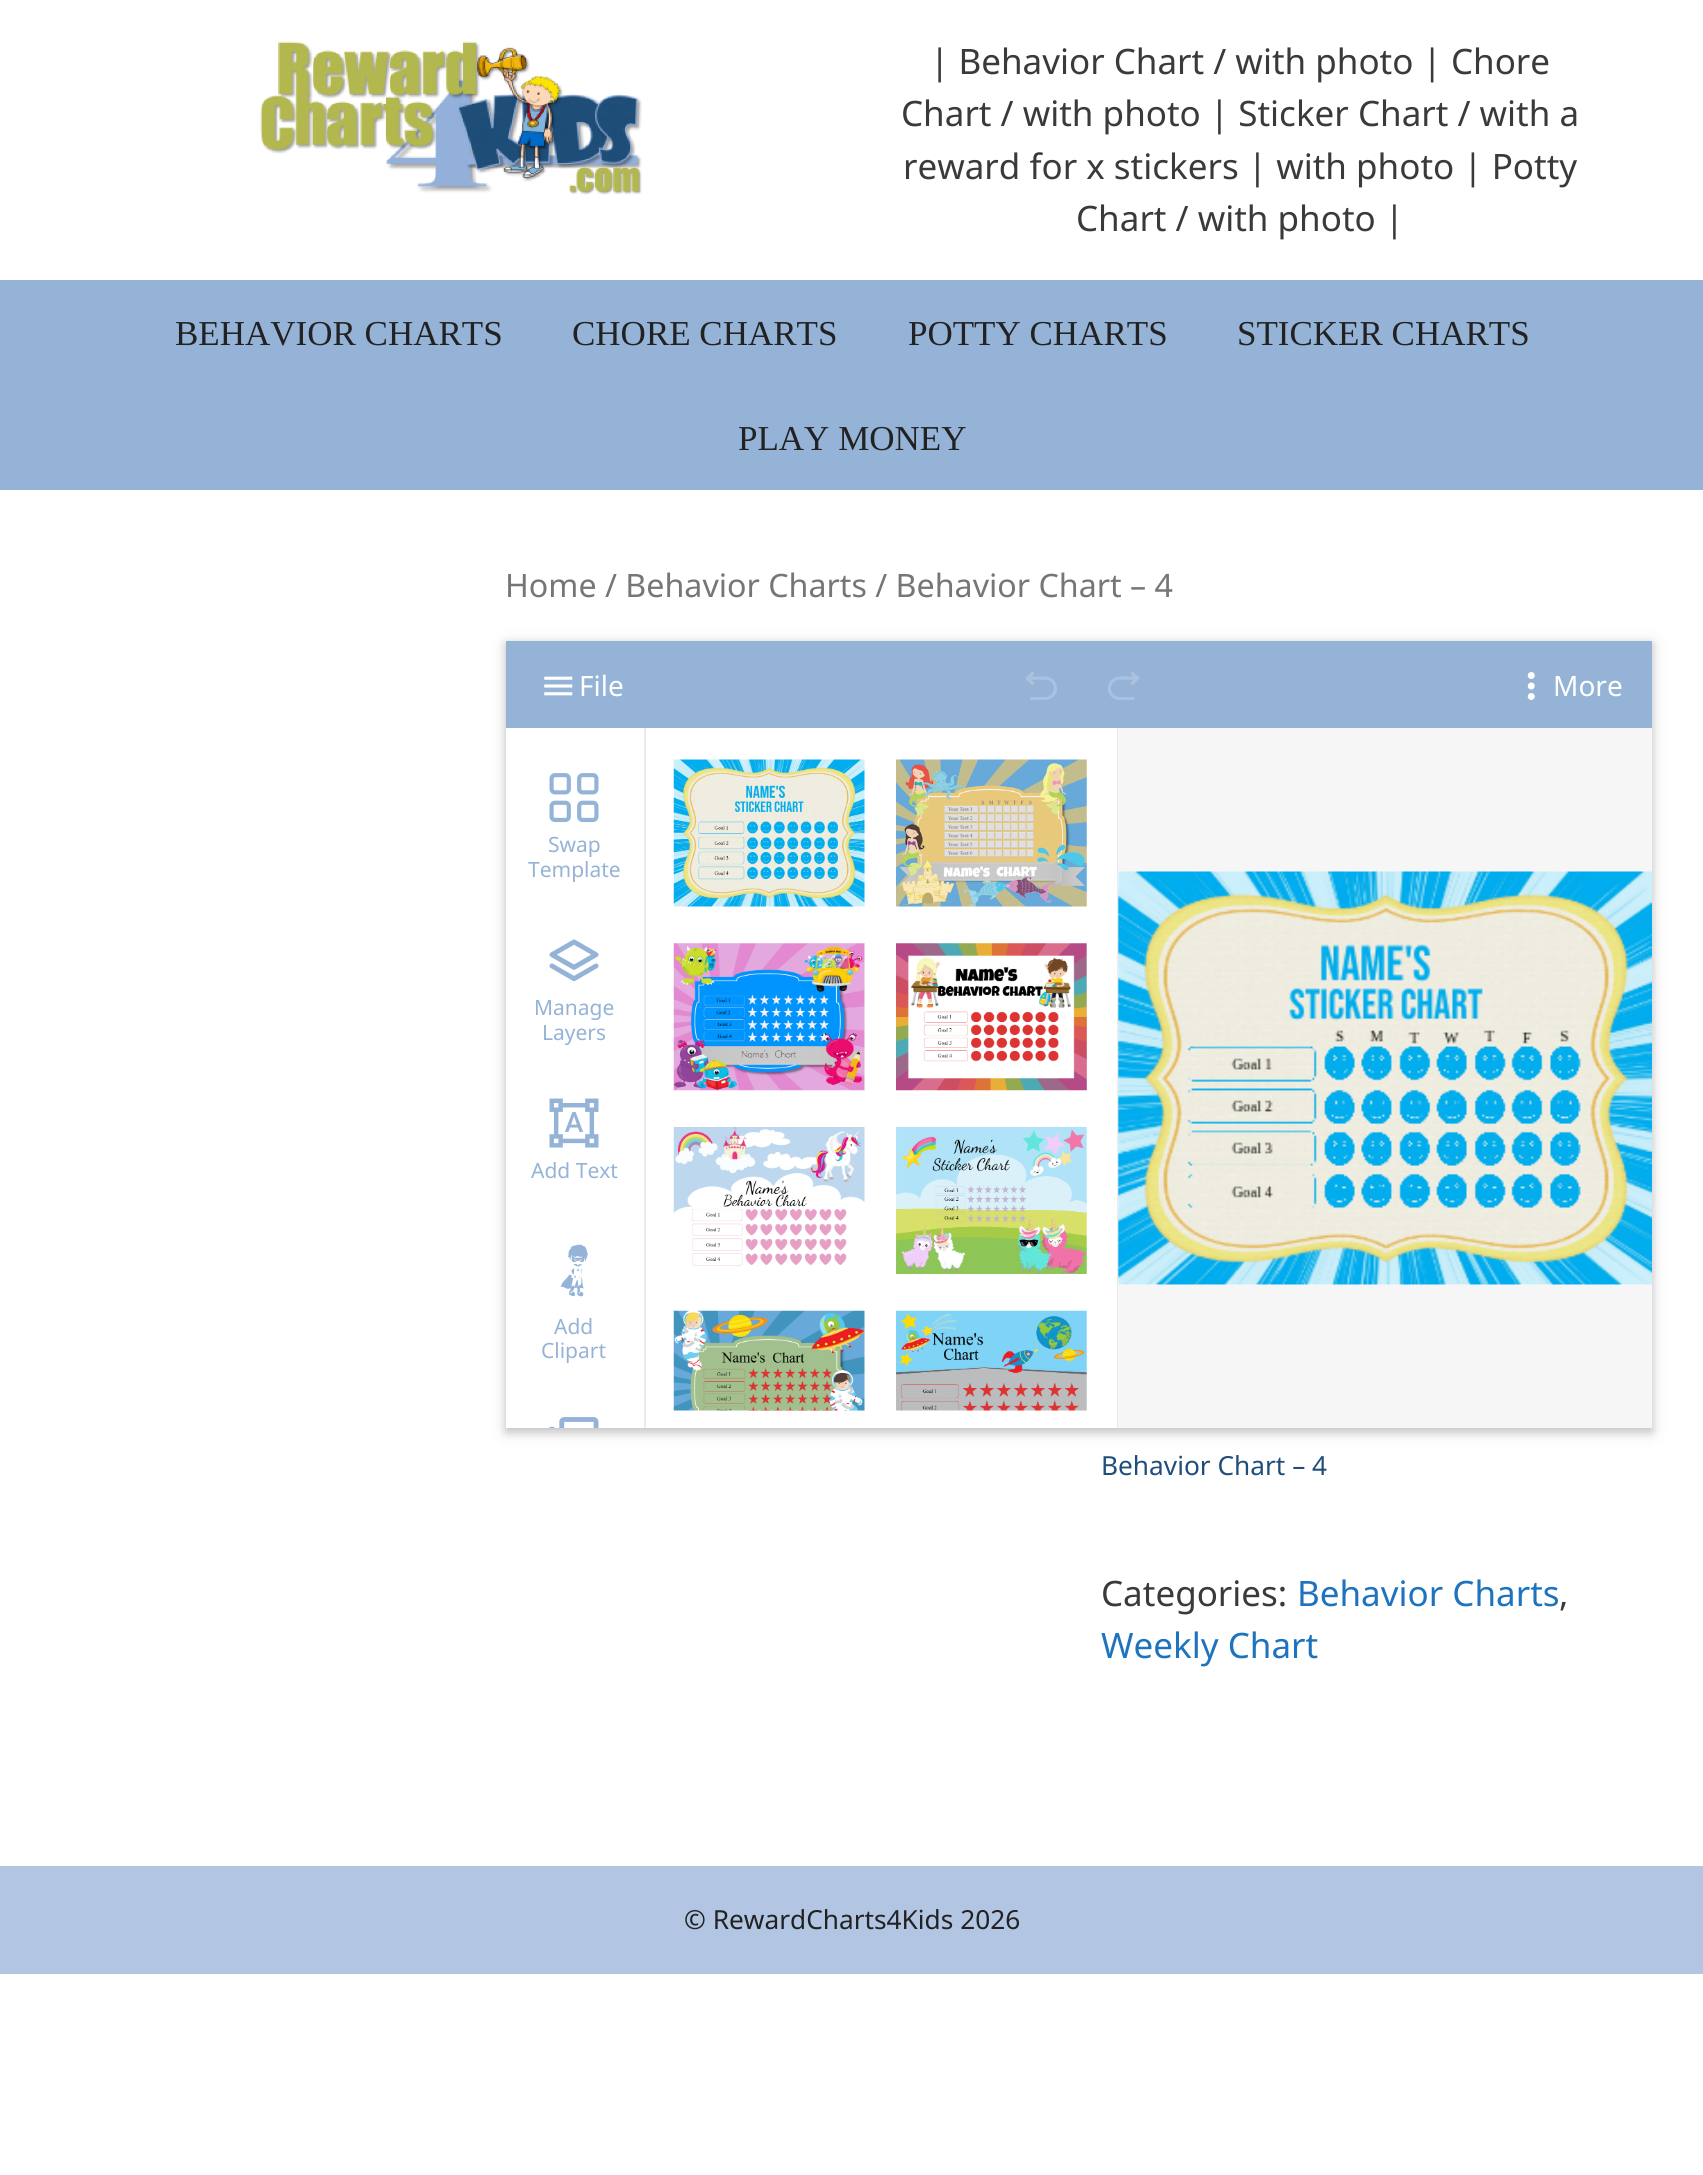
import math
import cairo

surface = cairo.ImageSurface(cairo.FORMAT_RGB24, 1703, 2175)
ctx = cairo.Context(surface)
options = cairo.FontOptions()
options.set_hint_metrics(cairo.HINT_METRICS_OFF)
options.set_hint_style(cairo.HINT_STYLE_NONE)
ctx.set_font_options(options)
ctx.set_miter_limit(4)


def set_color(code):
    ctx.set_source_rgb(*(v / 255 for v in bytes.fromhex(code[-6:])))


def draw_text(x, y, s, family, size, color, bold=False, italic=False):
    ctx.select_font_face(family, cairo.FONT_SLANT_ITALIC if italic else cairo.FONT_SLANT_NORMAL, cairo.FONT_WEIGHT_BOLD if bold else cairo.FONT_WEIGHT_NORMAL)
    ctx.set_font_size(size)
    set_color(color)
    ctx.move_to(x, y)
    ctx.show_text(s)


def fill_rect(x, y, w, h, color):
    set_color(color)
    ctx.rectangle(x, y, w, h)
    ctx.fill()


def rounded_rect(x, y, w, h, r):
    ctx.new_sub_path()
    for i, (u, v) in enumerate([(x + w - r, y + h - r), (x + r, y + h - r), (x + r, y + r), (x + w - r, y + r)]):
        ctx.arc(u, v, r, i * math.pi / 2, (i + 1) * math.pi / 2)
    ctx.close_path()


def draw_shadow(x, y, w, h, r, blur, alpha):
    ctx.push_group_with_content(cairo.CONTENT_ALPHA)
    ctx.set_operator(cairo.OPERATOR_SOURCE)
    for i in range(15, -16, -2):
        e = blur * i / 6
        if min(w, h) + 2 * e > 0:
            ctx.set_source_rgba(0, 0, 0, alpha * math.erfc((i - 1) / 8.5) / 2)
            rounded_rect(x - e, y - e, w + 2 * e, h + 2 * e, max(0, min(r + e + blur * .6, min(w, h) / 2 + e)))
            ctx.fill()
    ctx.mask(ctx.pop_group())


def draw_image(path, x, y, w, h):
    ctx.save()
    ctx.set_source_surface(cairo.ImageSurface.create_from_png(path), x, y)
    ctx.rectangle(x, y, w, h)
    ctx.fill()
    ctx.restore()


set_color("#ffffff")
ctx.paint()
draw_image("assets/img1.png", 260, 41, 382, 154)
draw_text(930, 74, "| Behavior Chart / with photo | Chore", "Noto Sans", 35, "#3a3a3a")
draw_text(901, 126, "Chart / with photo | Sticker Chart / with a", "Noto Sans", 35, "#3a3a3a")
draw_text(903, 179, "reward for x stickers | with photo | Potty", "Noto Sans", 35, "#3a3a3a")
draw_text(1076, 231, "Chart / with photo |", "Noto Sans", 35, "#3a3a3a")
fill_rect(0, 280, 1703, 210, "#95b3d7")
draw_text(175, 345, "BEHAVIOR CHARTS", "Liberation Serif", 35, "#222222")
draw_text(572, 345, "CHORE CHARTS", "Liberation Serif", 35, "#222222")
draw_text(908, 345, "POTTY CHARTS", "Liberation Serif", 35, "#222222")
draw_text(1237, 345, "STICKER CHARTS", "Liberation Serif", 35, "#222222")
draw_text(738, 450, "PLAY MONEY", "Liberation Serif", 35, "#222222")
draw_text(505, 597, "Home / Behavior Charts / Behavior Chart – 4", "Noto Sans", 32.2, "#767676")
ctx.save()
ctx.set_fill_rule(cairo.FILL_RULE_EVEN_ODD)
ctx.new_path()
ctx.move_to(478, 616)
ctx.line_to(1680, 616)
ctx.line_to(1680, 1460)
ctx.line_to(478, 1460)
ctx.close_path()
ctx.move_to(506, 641)
ctx.line_to(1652, 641)
ctx.line_to(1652, 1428)
ctx.line_to(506, 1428)
ctx.close_path()
ctx.clip()
set_color("#000000")
draw_shadow(506, 644, 1146, 788, 0, 9, 0.12)
ctx.restore()
ctx.save()
ctx.set_fill_rule(cairo.FILL_RULE_EVEN_ODD)
ctx.new_path()
ctx.move_to(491, 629)
ctx.line_to(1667, 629)
ctx.line_to(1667, 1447)
ctx.line_to(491, 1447)
ctx.close_path()
ctx.move_to(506, 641)
ctx.line_to(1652, 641)
ctx.line_to(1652, 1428)
ctx.line_to(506, 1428)
ctx.close_path()
ctx.clip()
set_color("#000000")
draw_shadow(506, 644, 1146, 788, 0, 4.5, 0.16)
ctx.restore()
fill_rect(506, 641, 1146, 87, "#95b3d7")
draw_image("assets/img2.png", 544, 676, 29, 20)
draw_text(579, 696, "File", "Noto Sans", 28, "#ffffff")
draw_image("assets/img3.png", 1025, 672, 32, 28)
draw_image("assets/img4.png", 1107, 672, 32, 28)
draw_image("assets/img5.png", 1527, 672, 8, 28)
draw_text(1553, 696, "More", "Noto Sans", 28, "#ffffff")
fill_rect(1117, 728, 1, 700, "#ebebeb")
fill_rect(644, 728, 2, 700, "#ebebeb")
draw_image("assets/img6.png", 549, 773, 50, 50)
draw_text(548, 852, "Swap", "Noto Sans", 21, "#95b3d7")
draw_text(528, 877, "Template", "Noto Sans", 21, "#95b3d7")
draw_image("assets/img7.png", 549, 939, 50, 43)
draw_text(534, 1015, "Manage", "Noto Sans", 21, "#95b3d7")
draw_text(542, 1040, "Layers", "Noto Sans", 21, "#95b3d7")
draw_image("assets/img8.png", 549, 1098, 50, 50)
draw_text(531, 1178, "Add Text", "Noto Sans", 21, "#95b3d7")
draw_image("assets/img9.png", 560, 1244, 28, 53)
draw_text(554, 1334, "Add", "Noto Sans", 21, "#95b3d7")
draw_text(541, 1358, "Clipart", "Noto Sans", 21, "#95b3d7")
draw_image("assets/img10.png", 549, 1417, 50, 11)
draw_image("assets/img11.png", 673, 759, 192, 148)
draw_image("assets/img12.png", 896, 759, 191, 148)
draw_image("assets/img13.png", 673, 943, 192, 148)
draw_image("assets/img14.png", 896, 943, 191, 148)
draw_image("assets/img15.png", 673, 1127, 192, 139)
draw_image("assets/img16.png", 896, 1127, 191, 147)
draw_image("assets/img17.png", 673, 1310, 192, 101)
draw_image("assets/img18.png", 896, 1310, 191, 101)
fill_rect(1118, 728, 534, 700, "#f6f6f6")
fill_rect(1118, 872, 534, 413, "#fdfdfd")
draw_image("assets/img19.png", 1118, 871, 534, 414)
draw_text(1101, 1475, "Behavior Chart – 4", "Noto Sans", 26.25, "#1f4e7a")
draw_text(1101, 1606, "Categories:", "Noto Sans", 35, "#3a3a3a")
draw_text(1297, 1606, "Behavior Charts", "Noto Sans", 35, "#1e73be")
draw_text(1559, 1606, ",", "Noto Sans", 35, "#3a3a3a")
draw_text(1101, 1658, "Weekly Chart", "Noto Sans", 35, "#1e73be")
fill_rect(0, 1866, 1703, 108, "#b2c6e3")
draw_text(684, 1929, "© RewardCharts4Kids 2026", "Noto Sans", 26.25, "#222222")
surface.write_to_png("output.png")
